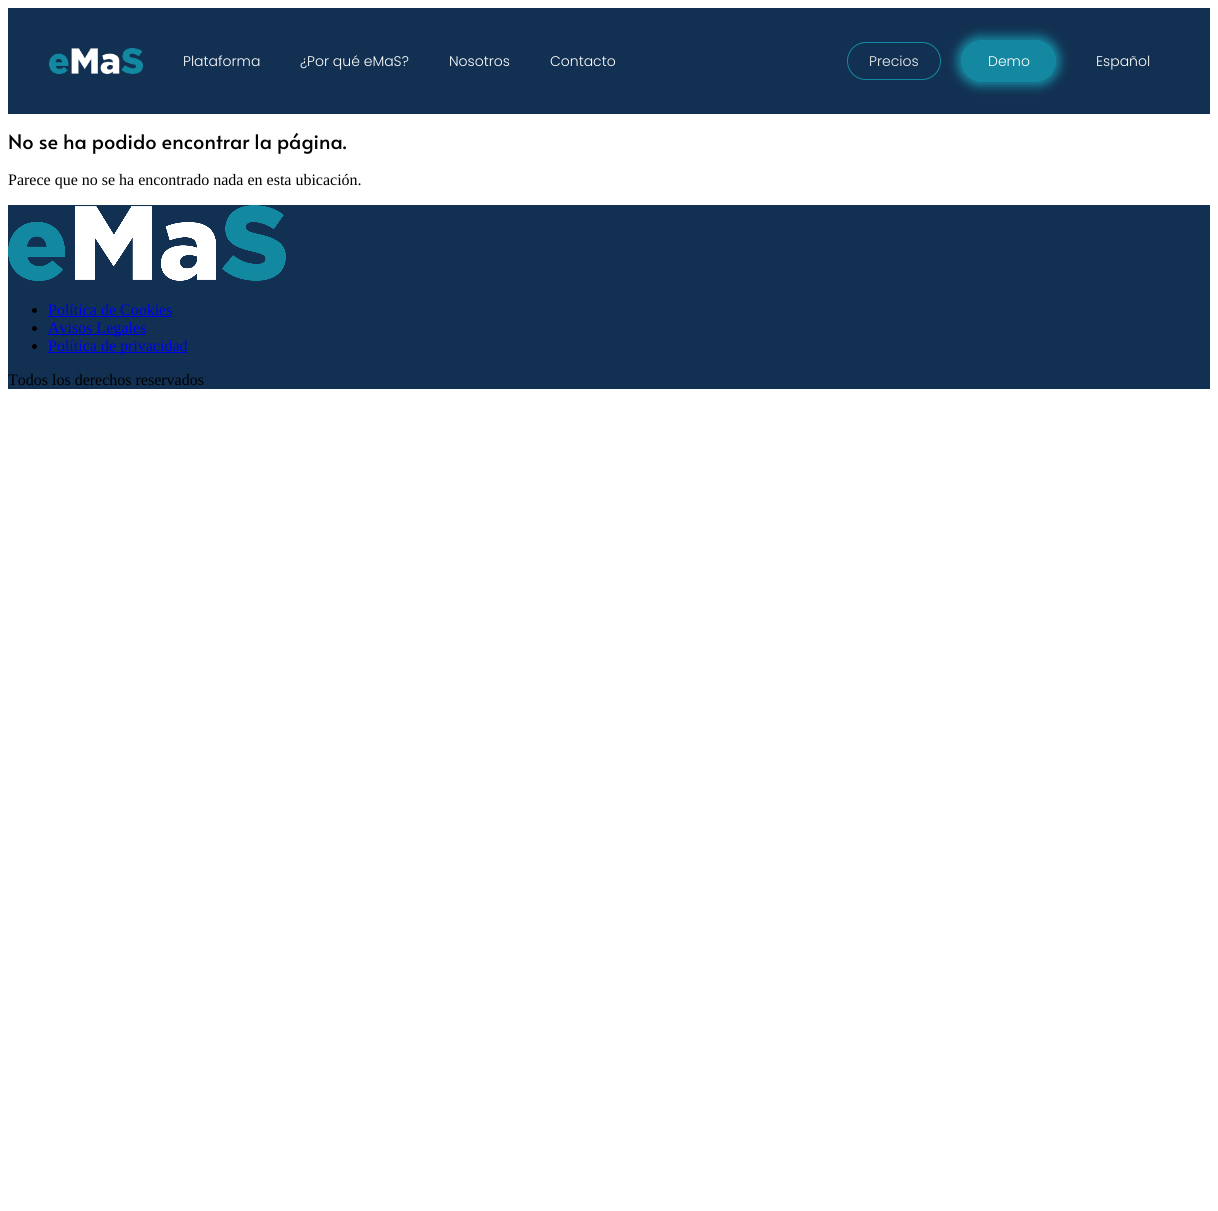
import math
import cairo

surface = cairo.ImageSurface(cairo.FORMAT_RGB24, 1218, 1211)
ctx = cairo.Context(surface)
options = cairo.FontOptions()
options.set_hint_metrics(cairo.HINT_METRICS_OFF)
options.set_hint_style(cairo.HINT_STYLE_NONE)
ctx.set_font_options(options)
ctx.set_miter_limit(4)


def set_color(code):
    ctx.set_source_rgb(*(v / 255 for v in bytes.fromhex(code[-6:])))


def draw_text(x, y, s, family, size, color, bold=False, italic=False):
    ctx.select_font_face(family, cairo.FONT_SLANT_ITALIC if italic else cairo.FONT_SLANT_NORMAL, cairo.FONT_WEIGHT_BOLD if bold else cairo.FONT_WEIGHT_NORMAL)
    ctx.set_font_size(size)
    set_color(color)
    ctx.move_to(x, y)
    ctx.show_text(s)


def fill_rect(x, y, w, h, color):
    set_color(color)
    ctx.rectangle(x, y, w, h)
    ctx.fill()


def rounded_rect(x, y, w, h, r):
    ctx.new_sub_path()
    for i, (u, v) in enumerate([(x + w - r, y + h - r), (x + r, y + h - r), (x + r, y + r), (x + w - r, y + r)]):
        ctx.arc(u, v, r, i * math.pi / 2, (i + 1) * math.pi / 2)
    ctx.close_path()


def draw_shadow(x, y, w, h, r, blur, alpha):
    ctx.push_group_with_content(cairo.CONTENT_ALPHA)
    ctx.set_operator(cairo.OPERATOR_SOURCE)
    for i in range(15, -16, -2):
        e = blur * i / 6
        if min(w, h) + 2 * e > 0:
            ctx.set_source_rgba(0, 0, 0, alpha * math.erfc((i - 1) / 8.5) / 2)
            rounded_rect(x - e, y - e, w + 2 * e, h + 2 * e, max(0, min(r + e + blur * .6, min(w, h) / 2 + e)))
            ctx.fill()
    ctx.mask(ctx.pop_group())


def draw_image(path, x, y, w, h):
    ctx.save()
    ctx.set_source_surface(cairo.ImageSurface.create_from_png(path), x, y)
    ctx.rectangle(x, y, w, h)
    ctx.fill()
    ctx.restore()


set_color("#ffffff")
ctx.paint()
fill_rect(8, 8, 1202, 106, "#123051")
draw_image("assets/img1.png", 49, 48, 94, 26)
draw_text(183, 66, "Plataforma", "Poppins Light", 14, "#ffffff")
draw_text(300, 66, "¿Por qué eMaS?", "Poppins Light", 14, "#ffffff")
draw_text(449, 66, "Nosotros", "Poppins Light", 14, "#ffffff")
draw_text(550, 66, "Contacto", "Poppins Light", 14, "#ffffff")
rounded_rect(847.5, 42.5, 93, 37, 18.5)
set_color("#1588a1")
ctx.set_line_width(1)
ctx.stroke()
draw_text(869, 66, "Precios", "Poppins Light", 14, "#f2f2f2")
set_color("#1588a1")
draw_shadow(957, 36, 103, 50, 25, 5, 1)
set_color("#1588a1")
rounded_rect(962.5, 41.5, 92, 39, 19.5)
ctx.fill_preserve()
ctx.set_line_width(3)
ctx.stroke()
draw_text(988, 66, "Demo", "Poppins Light", 14, "#ffffff")
draw_text(1096, 66, "Español", "Poppins Light", 14, "#ffffff")
draw_text(8, 149, "No se ha podido encontrar la página.", "Alata", 20, "#000000")
draw_text(8, 185, "Parece que no se ha encontrado nada en esta ubicación.", "Liberation Serif", 16, "#000000")
fill_rect(8, 205, 1202, 184, "#123051")
draw_image("assets/img2.png", 8, 205, 278, 76)
set_color("#000000")
ctx.arc(34.5, 310.5, 2.5, 0, 2 * math.pi)
ctx.fill()
draw_text(48, 315, "Política de Cookies", "Liberation Serif", 16, "#0000ee")
fill_rect(48, 316, 124, 1, "#0000ee")
set_color("#000000")
ctx.new_path()
ctx.arc(34.5, 328.5, 2.5, 0, 2 * math.pi)
ctx.fill()
fill_rect(48, 334, 98, 1, "#0000ee")
draw_text(48, 333, "Avisos Legales", "Liberation Serif", 16, "#0000ee")
set_color("#000000")
ctx.new_path()
ctx.arc(34.5, 346.5, 2.5, 0, 2 * math.pi)
ctx.fill()
fill_rect(48, 352, 140, 1, "#0000ee")
draw_text(48, 351, "Política de privacidad", "Liberation Serif", 16, "#0000ee")
draw_text(8, 385, "Todos los derechos reservados", "Liberation Serif", 16, "#000000")
surface.write_to_png("output.png")
